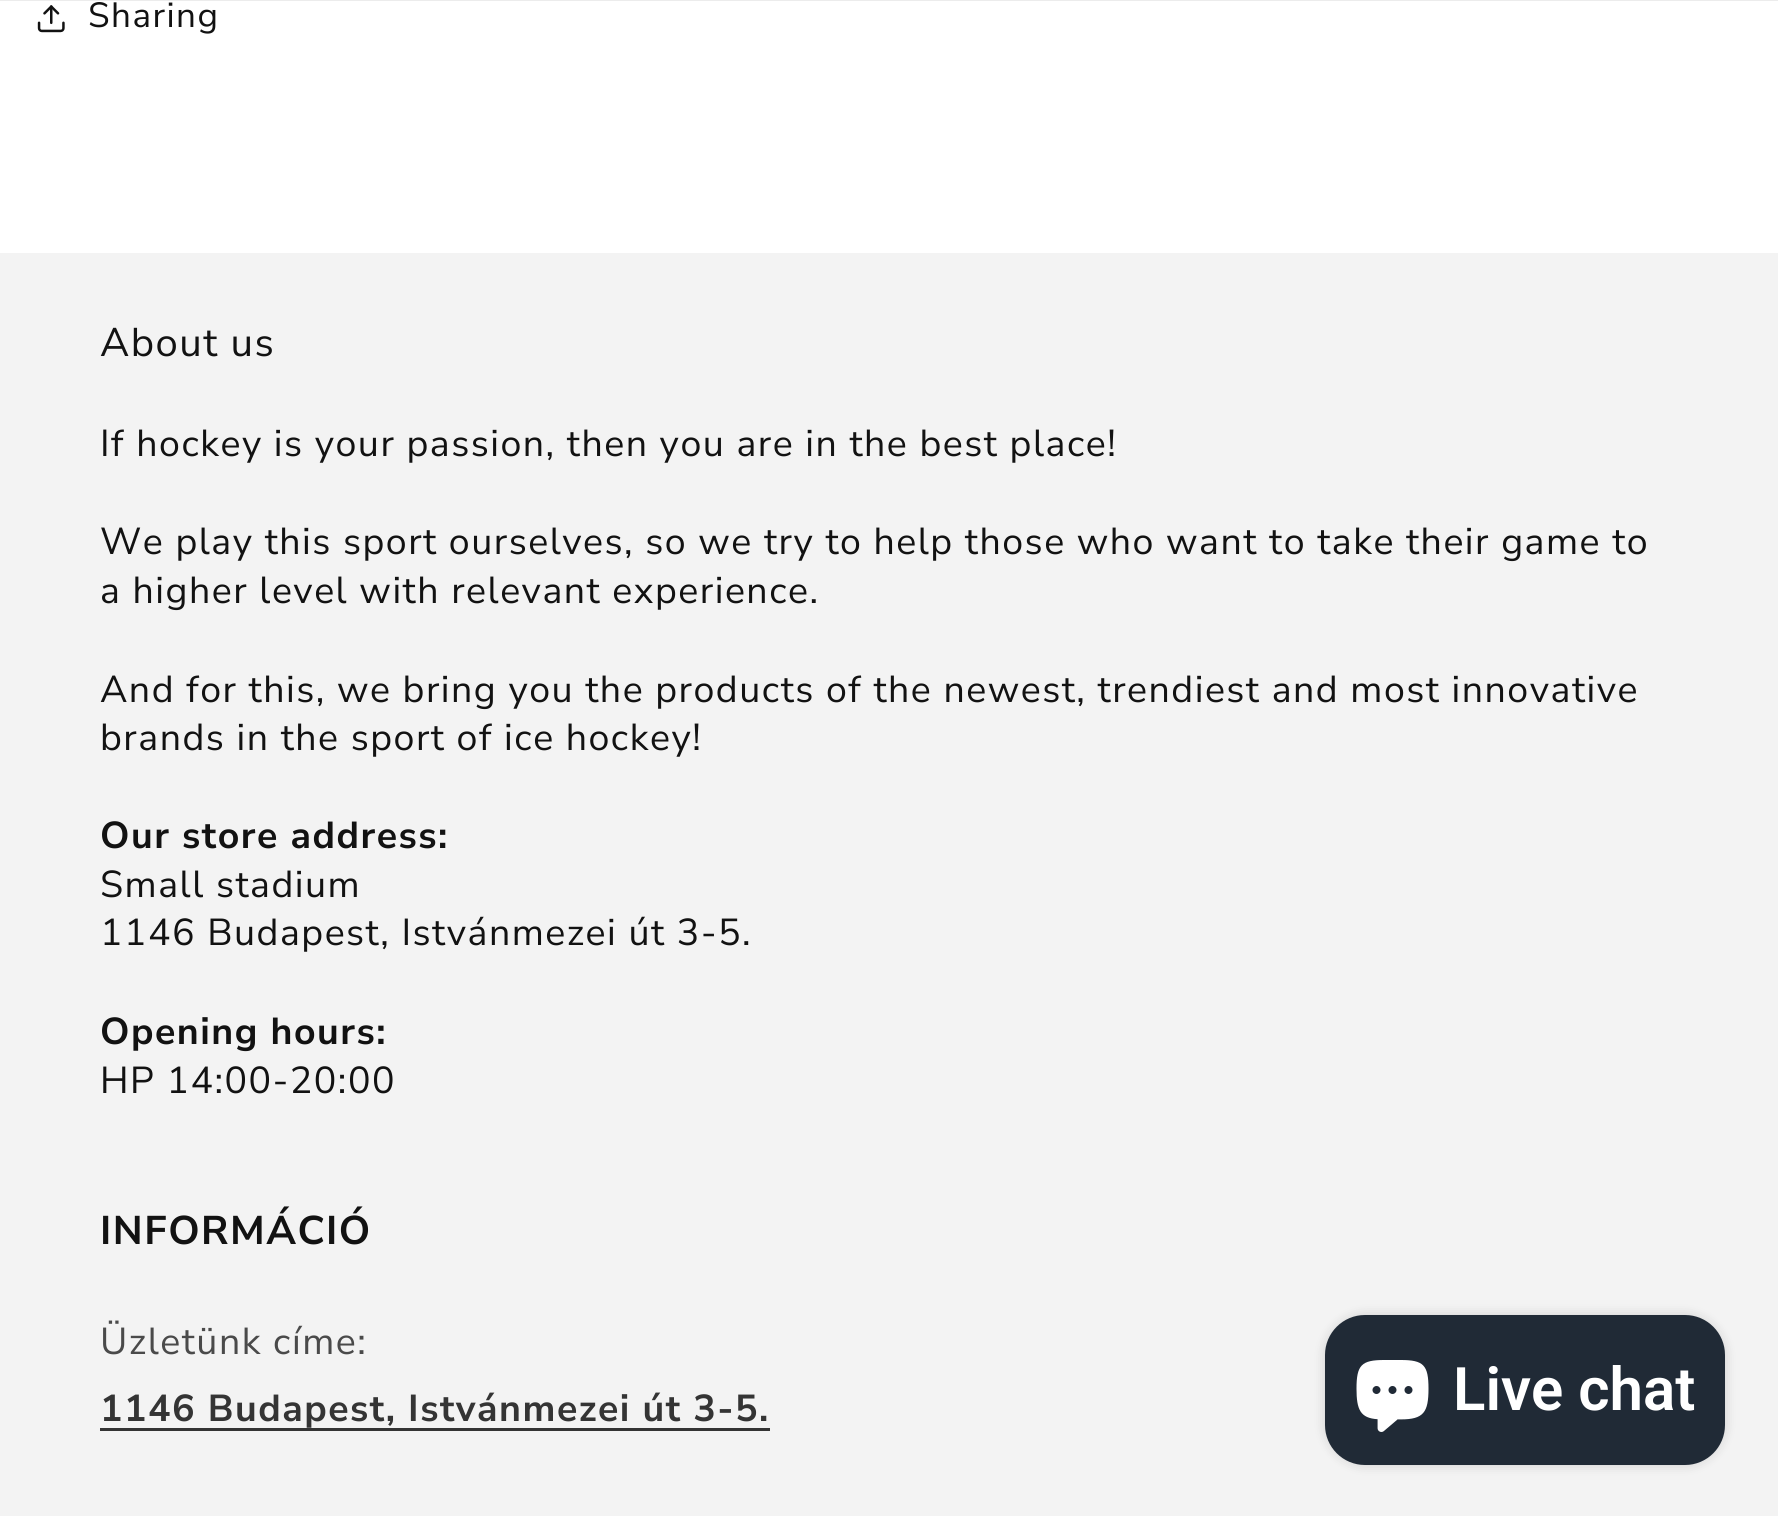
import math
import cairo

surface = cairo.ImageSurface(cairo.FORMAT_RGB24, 1778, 1516)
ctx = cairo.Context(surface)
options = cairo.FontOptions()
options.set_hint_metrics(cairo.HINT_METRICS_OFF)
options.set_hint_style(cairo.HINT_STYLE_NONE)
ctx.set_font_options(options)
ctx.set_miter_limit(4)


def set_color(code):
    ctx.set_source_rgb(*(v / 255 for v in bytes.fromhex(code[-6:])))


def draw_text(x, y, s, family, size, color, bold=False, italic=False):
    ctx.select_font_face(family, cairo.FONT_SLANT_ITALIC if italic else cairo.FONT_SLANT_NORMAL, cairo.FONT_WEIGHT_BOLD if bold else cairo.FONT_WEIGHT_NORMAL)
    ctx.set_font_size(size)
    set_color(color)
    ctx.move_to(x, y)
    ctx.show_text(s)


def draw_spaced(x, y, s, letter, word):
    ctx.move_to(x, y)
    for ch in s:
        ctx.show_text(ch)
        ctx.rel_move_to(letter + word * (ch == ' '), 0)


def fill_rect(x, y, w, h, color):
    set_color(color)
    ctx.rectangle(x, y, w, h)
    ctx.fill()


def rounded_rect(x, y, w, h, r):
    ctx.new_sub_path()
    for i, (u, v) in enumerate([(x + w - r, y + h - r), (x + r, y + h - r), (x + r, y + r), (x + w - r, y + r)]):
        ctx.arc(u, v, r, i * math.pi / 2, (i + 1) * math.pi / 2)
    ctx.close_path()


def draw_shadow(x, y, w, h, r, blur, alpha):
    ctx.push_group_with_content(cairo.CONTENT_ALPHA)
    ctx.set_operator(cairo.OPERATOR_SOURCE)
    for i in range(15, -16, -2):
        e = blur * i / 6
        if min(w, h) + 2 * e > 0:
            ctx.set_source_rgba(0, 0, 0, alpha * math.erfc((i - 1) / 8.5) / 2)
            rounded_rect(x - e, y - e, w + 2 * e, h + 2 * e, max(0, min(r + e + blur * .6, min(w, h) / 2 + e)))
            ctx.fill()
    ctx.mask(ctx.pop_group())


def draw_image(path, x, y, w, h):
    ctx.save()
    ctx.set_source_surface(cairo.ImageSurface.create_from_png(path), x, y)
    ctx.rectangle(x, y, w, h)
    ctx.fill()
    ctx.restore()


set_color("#ffffff")
ctx.paint()
fill_rect(0, 0, 1778, 1, "#ececec")
draw_image("assets/img1.png", 37, 5, 28, 28)
ctx.select_font_face("Nunito Sans")
ctx.set_font_size(35)
set_color("#121212")
draw_spaced(88, 27, "Sharing", 1.5, 0)
fill_rect(0, 253, 1778, 1263, "#f3f3f3")
ctx.set_font_size(40)
set_color("#121212")
draw_spaced(100, 356, "About us", 1.5, 0)
ctx.set_font_size(37.5)
draw_spaced(100, 456, "If hockey is your passion, then you are in the best place!", 1.5, 0)
draw_spaced(100, 554, "We play this sport ourselves, so we try to help those who want to take their game to", 1.5, 0)
draw_spaced(100, 603, "a higher level with relevant experience.", 1.5, 0)
draw_spaced(100, 702, "And for this, we bring you the products of the newest, trendiest and most innovative", 1.5, 0)
draw_spaced(100, 750, "brands in the sport of ice hockey!", 1.5, 0)
ctx.select_font_face("Nunito Sans", cairo.FONT_SLANT_NORMAL, cairo.FONT_WEIGHT_BOLD)
draw_spaced(100, 848, "Our store address:", 1.5, 0)
ctx.select_font_face("Nunito Sans")
draw_spaced(100, 897, "Small stadium", 1.5, 0)
draw_spaced(100, 945, "1146 Budapest, Istvánmezei út 3-5.", 1.5, 0)
ctx.select_font_face("Nunito Sans", cairo.FONT_SLANT_NORMAL, cairo.FONT_WEIGHT_BOLD)
draw_spaced(100, 1044, "Opening hours:", 1.5, 0)
ctx.select_font_face("Nunito Sans")
draw_spaced(100, 1093, "HP 14:00-20:00", 1.5, 0)
ctx.select_font_face("Nunito Sans", cairo.FONT_SLANT_NORMAL, cairo.FONT_WEIGHT_BOLD)
ctx.set_font_size(40)
draw_spaced(100, 1244, "INFORMÁCIÓ", 1.5, 0)
ctx.select_font_face("Nunito Sans")
ctx.set_font_size(37.5)
set_color("#4a4a4a")
draw_spaced(100, 1354, "Üzletünk címe:", 1.5, 0)
ctx.select_font_face("Nunito Sans", cairo.FONT_SLANT_NORMAL, cairo.FONT_WEIGHT_BOLD)
set_color("#343434")
draw_spaced(100, 1421, "1146 Budapest, Istvánmezei út 3-5.", 1.5, 0)
fill_rect(100, 1428, 670, 3, "#343434")
set_color("#000000")
draw_shadow(1325, 1315, 400, 150, 40, 6, 0.15)
set_color("#202a36")
rounded_rect(1325, 1315, 400, 150, 40)
ctx.fill()
draw_image("assets/img2.png", 1356, 1360, 73, 72)
draw_text(1453, 1410, "Live chat", "Roboto SemiBold", 60, "#ffffff")
surface.write_to_png("output.png")
